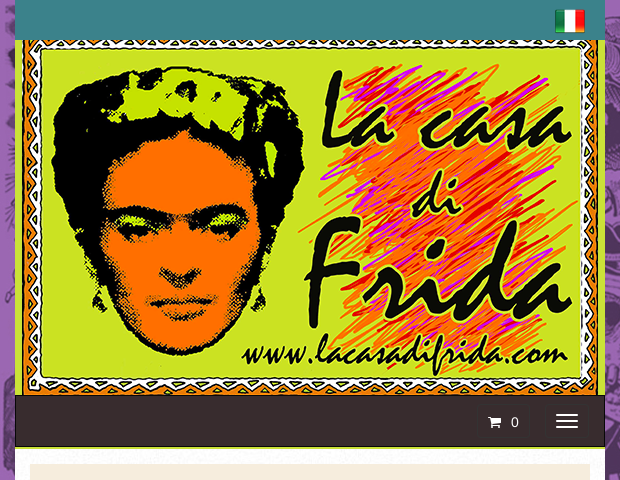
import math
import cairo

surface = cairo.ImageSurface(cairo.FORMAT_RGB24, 620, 480)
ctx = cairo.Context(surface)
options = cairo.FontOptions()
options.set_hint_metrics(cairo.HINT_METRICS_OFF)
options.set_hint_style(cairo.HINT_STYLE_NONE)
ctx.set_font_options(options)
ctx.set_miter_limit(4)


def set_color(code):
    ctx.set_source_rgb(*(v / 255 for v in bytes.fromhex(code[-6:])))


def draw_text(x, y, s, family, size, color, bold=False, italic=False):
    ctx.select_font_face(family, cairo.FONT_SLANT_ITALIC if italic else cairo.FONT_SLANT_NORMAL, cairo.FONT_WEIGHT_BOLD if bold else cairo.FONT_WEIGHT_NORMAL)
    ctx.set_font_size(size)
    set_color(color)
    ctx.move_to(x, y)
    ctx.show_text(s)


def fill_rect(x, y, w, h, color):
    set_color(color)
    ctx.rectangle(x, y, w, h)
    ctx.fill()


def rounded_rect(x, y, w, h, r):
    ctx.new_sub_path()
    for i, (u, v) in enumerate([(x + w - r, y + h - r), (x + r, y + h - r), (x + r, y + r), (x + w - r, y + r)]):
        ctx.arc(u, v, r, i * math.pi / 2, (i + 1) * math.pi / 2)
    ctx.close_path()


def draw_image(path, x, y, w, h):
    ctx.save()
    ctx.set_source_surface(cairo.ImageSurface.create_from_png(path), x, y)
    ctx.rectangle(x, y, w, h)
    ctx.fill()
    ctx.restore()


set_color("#ffffff")
ctx.paint()
draw_image("assets/img1.png", 0, 0, 620, 480)
fill_rect(15, 40, 590, 409, "#cbe238")
fill_rect(15, 0, 590, 40, "#3b828b")
draw_image("assets/img2.png", 555, 9, 30, 25)
draw_image("assets/img3.png", 22, 40, 576, 355)
set_color("#382c2e")
ctx.rectangle(15.5, 395.5, 589, 51)
ctx.fill_preserve()
set_color("#080808")
ctx.set_line_width(1)
ctx.stroke()
rounded_rect(477.5, 404.5, 52, 33, 3.5)
set_color("#333333")
ctx.stroke()
draw_image("assets/img4.png", 488, 417, 13, 11)
draw_text(511, 427, "0", "Liberation Sans", 14, "#ffffff")
rounded_rect(545.5, 404.5, 43, 33, 3.5)
set_color("#333333")
ctx.stroke()
set_color("#ffffff")
rounded_rect(556, 414, 22, 2, 1)
ctx.fill()
rounded_rect(556, 420, 22, 2, 1)
ctx.fill()
rounded_rect(556, 426, 22, 2, 1)
ctx.fill()
draw_image("assets/img5.png", 15, 449, 590, 31)
fill_rect(30, 464, 560, 16, "#f6eddd")
surface.write_to_png("output.png")
